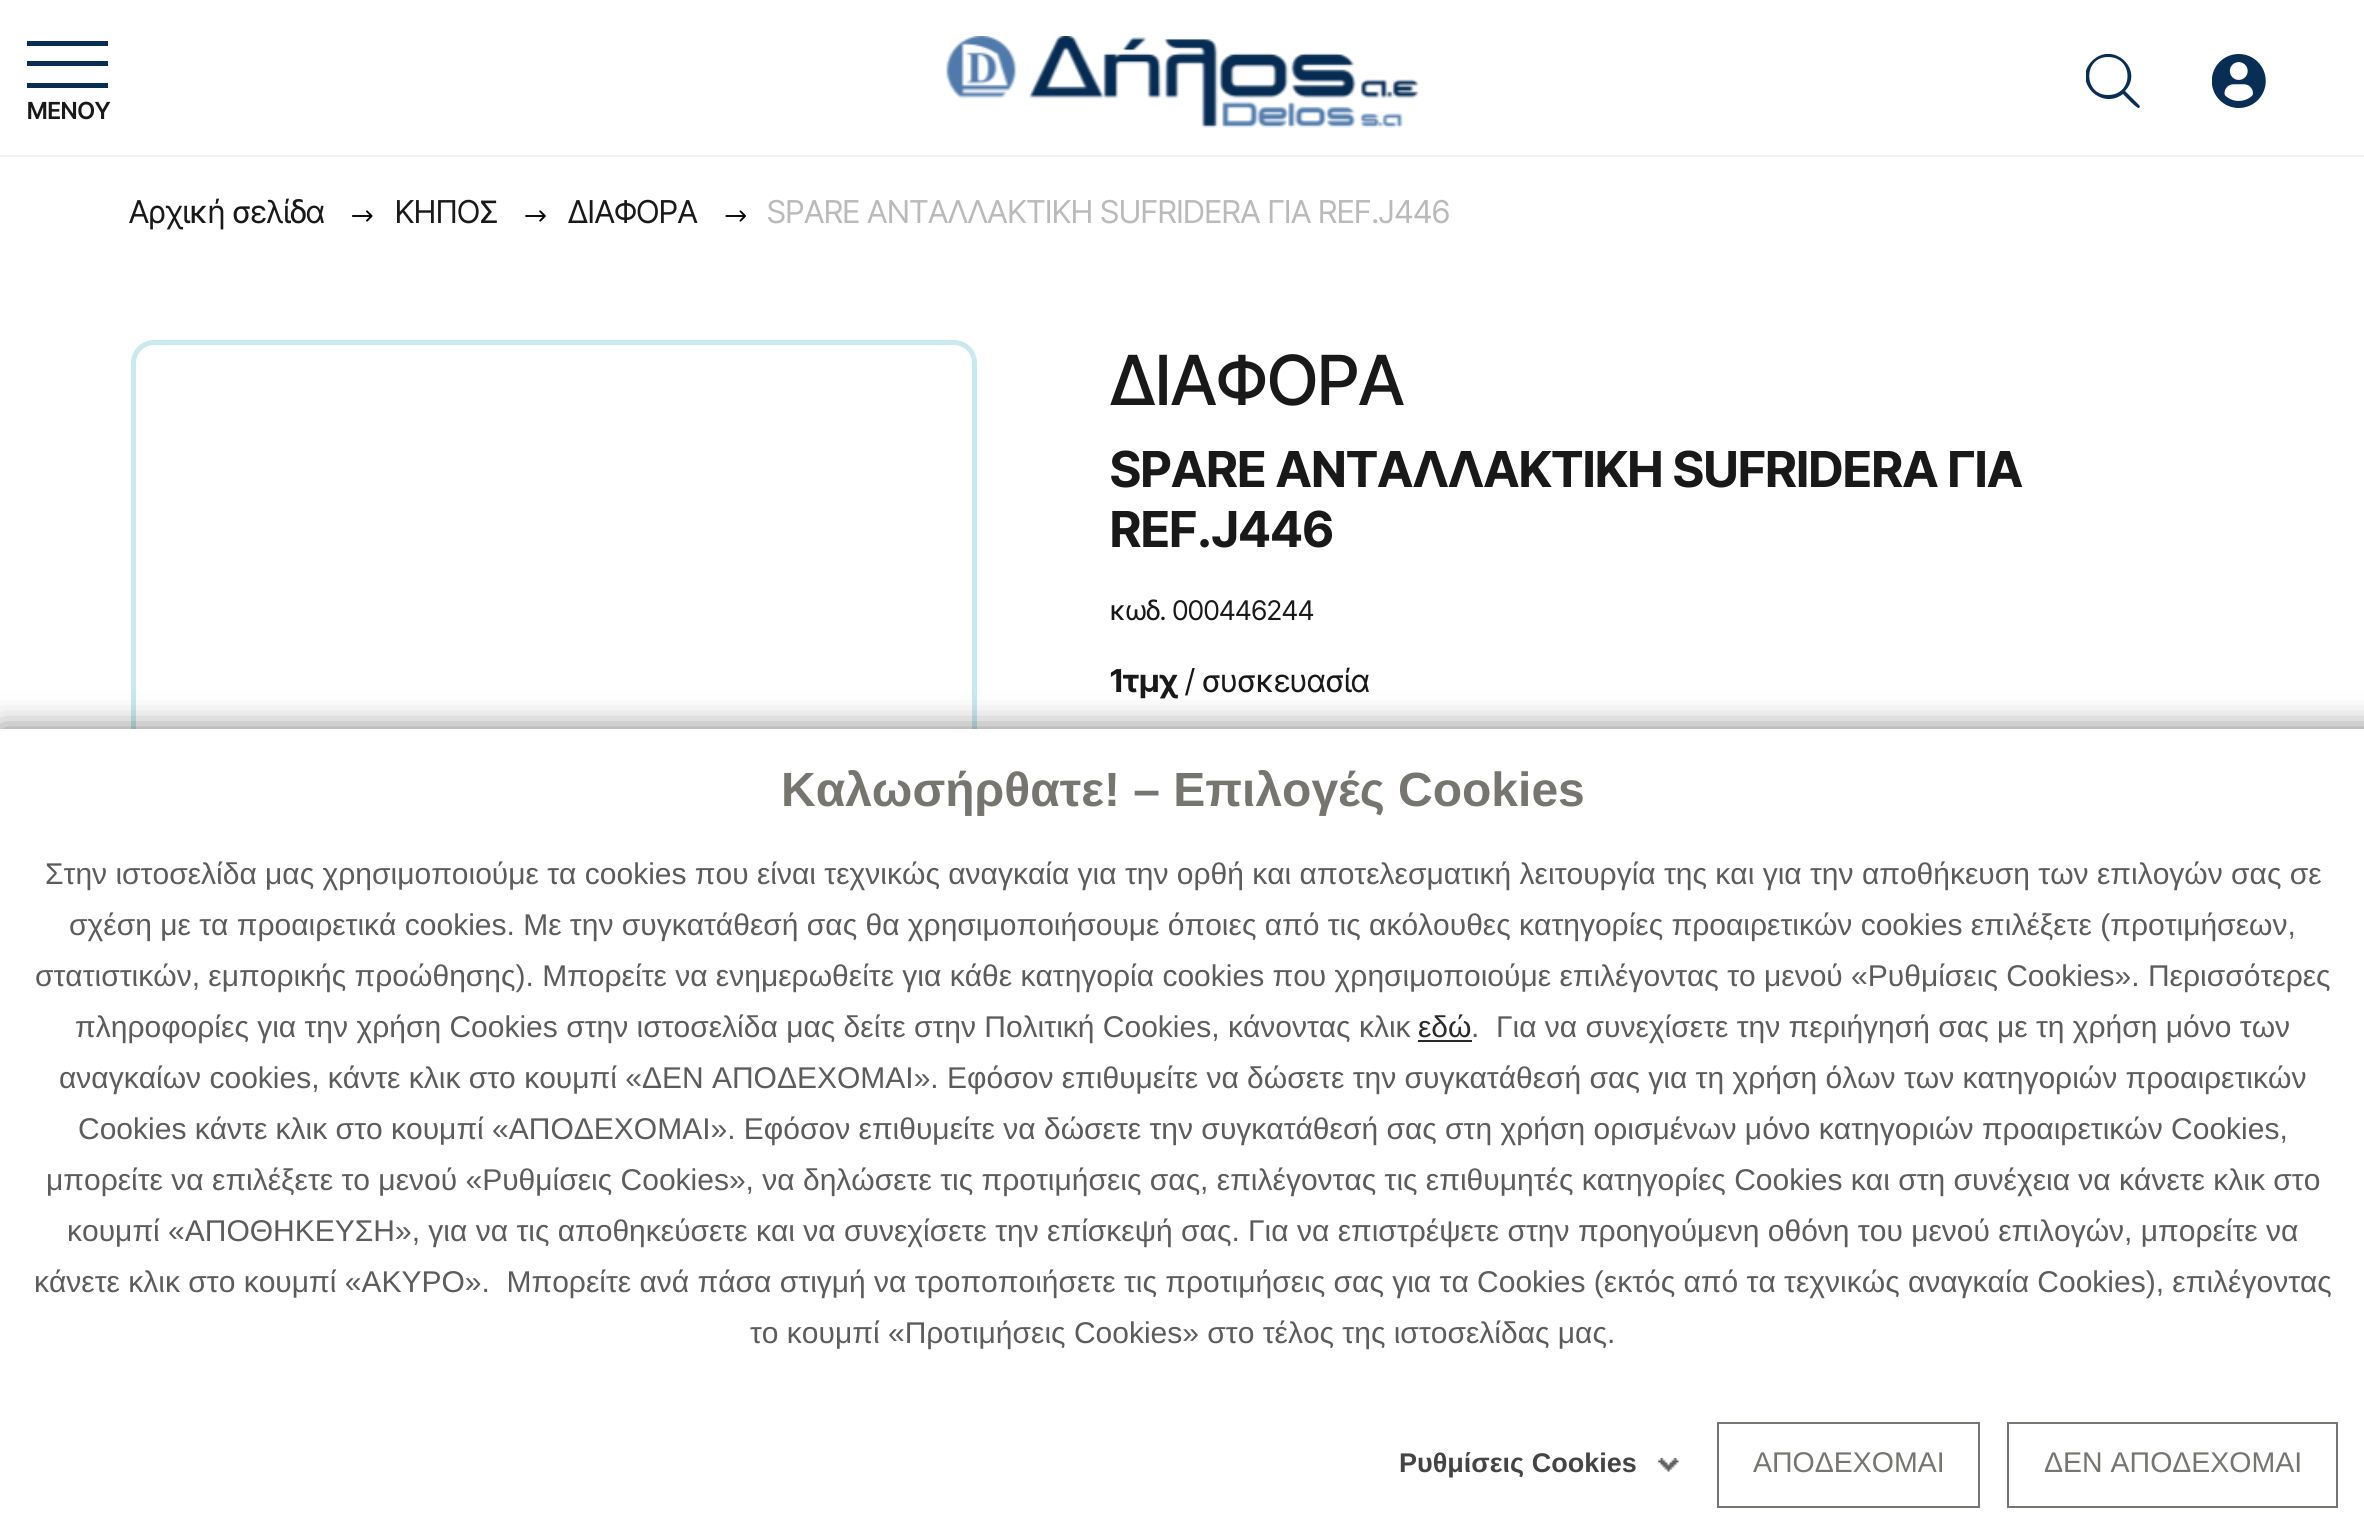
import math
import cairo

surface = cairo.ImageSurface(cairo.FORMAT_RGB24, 2364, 1524)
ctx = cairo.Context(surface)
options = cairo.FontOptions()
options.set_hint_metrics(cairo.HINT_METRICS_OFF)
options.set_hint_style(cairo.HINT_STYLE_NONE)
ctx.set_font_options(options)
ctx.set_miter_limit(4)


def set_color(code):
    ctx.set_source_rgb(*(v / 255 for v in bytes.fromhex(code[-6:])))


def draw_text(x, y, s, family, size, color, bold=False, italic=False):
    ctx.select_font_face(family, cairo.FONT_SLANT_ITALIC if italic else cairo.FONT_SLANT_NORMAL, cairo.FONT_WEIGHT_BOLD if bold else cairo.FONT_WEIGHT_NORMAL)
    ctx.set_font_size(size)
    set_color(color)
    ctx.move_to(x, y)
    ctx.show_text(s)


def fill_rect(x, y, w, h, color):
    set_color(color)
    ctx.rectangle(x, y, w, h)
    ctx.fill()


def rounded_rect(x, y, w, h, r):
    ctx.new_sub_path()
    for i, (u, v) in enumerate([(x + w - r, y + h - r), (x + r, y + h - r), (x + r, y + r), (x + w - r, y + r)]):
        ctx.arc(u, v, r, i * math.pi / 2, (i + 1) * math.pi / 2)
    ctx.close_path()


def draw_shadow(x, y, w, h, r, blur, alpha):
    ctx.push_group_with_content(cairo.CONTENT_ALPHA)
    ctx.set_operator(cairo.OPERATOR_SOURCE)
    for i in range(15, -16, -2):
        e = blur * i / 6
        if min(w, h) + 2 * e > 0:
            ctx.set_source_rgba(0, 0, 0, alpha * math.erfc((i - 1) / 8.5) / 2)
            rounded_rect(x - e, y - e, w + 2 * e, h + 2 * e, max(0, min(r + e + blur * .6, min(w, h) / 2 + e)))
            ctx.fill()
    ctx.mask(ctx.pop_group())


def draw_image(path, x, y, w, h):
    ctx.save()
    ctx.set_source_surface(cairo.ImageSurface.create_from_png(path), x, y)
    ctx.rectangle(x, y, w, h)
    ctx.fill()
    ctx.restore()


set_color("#ffffff")
ctx.paint()
fill_rect(0, 155, 2364, 2, "#f2f2f2")
draw_image("assets/img1.png", 946, 36, 473, 92)
ctx.save()
ctx.rectangle(2086, 54, 54, 54)
ctx.clip()
set_color("#082e55")
ctx.new_path()
ctx.move_to(2139, 105)
ctx.line_to(2125, 91)
ctx.curve_to(2145, 70, 2113, 40, 2092, 61)
ctx.curve_to(2072, 81, 2101, 111, 2123, 94)
ctx.curve_to(2125, 96, 2137, 109, 2139, 108)
ctx.curve_to(2140, 107, 2140, 106, 2139, 105)
ctx.close_path()
ctx.move_to(2108, 95)
ctx.curve_to(2083, 95, 2083, 57, 2108, 57)
ctx.curve_to(2134, 57, 2134, 95, 2108, 95)
ctx.close_path()
ctx.fill()
ctx.restore()
draw_image("assets/img2.png", 2212, 54, 54, 54)
fill_rect(27, 41, 81, 5, "#082e55")
fill_rect(27, 61, 81, 5, "#082e55")
fill_rect(27, 83, 81, 5, "#082e55")
draw_text(27, 119, "ΜΕΝΟΥ", "Inter Tight SemiBold", 23.5, "#191919")
draw_text(129, 223, "Αρχική σελίδα", "Inter Tight", 31.5, "#191919")
draw_image("assets/img3.png", 352, 210, 21, 12)
draw_text(395, 223, "ΚΗΠΟΣ", "Inter Tight", 31.5, "#191919")
draw_image("assets/img4.png", 525, 210, 21, 12)
draw_text(568, 223, "ΔΙΑΦΟΡΑ", "Inter Tight", 31.5, "#191919")
draw_image("assets/img5.png", 725, 210, 21, 12)
draw_text(767, 223, "SPARE ΑΝΤΑΛΛΑΚΤΙΚΗ SUFRIDERA ΓΙΑ REF.J446", "Inter Tight", 31.5, "#bababa")
rounded_rect(133.5, 342.5, 841, 895, 20.5)
set_color("#c8e9ef")
ctx.set_line_width(5)
ctx.stroke()
draw_text(1110, 405, "ΔΙΑΦΟΡΑ", "Inter Tight Medium", 69, "#191919")
draw_text(1110, 487, "SPARE ΑΝΤΑΛΛΑΚΤΙΚΗ SUFRIDERA ΓΙΑ", "Inter Tight", 49.5, "#191919", bold=True)
draw_text(1110, 547, "REF.J446", "Inter Tight", 49.5, "#191919", bold=True)
draw_text(1110, 620, "κωδ. 000446244", "Inter Tight", 27, "#191919")
draw_text(1110, 692, "1τμχ", "Inter Tight", 31.5, "#191919", bold=True)
draw_text(1185, 692, "/ συσκευασία", "Inter Tight", 31.5, "#191919")
set_color("#000000")
draw_shadow(0, 729, 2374, 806, 0, 16, 0.5)
fill_rect(0, 729, 2364, 795, "#ffffff")
draw_text(781, 806, "Καλωσήρθατε! – Επιλογές Cookies", "Liberation Sans", 48, "#76756f", bold=True)
draw_text(45, 884, "Στην ιστοσελίδα μας χρησιμοποιούμε τα cookies που είναι τεχνικώς αναγκαία για την ορθή και αποτελεσματική λειτουργία της και για την αποθήκευση των επιλογών σας σε", "Liberation Sans", 30, "#5c5c5c")
draw_text(69, 935, "σχέση με τα προαιρετικά cookies. Με την συγκατάθεσή σας θα χρησιμοποιήσουμε όποιες από τις ακόλουθες κατηγορίες προαιρετικών cookies επιλέξετε (προτιμήσεων,", "Liberation Sans", 30, "#5c5c5c")
draw_text(35, 986, "στατιστικών, εμπορικής προώθησης). Μπορείτε να ενημερωθείτε για κάθε κατηγορία cookies που χρησιμοποιούμε επιλέγοντας το μενού «Ρυθμίσεις Cookies». Περισσότερες", "Liberation Sans", 30, "#5c5c5c")
draw_text(75, 1037, "πληροφορίες για την χρήση Cookies στην ιστοσελίδα μας δείτε στην Πολιτική Cookies, κάνοντας κλικ", "Liberation Sans", 30, "#5c5c5c")
draw_text(1418, 1037, "εδώ", "Liberation Sans", 30, "#2a2a2a")
fill_rect(1418, 1040, 54, 2, "#2a2a2a")
draw_text(1471, 1037, ".  Για να συνεχίσετε την περιήγησή σας με τη χρήση μόνο των", "Liberation Sans", 30, "#5c5c5c")
draw_text(59, 1088, "αναγκαίων cookies, κάντε κλικ στο κουμπί «ΔΕΝ ΑΠΟΔΕΧΟΜΑΙ». Εφόσον επιθυμείτε να δώσετε την συγκατάθεσή σας για τη χρήση όλων των κατηγοριών προαιρετικών", "Liberation Sans", 30, "#5c5c5c")
draw_text(78, 1139, "Cookies κάντε κλικ στο κουμπί «ΑΠΟΔΕΧΟΜΑΙ». Εφόσον επιθυμείτε να δώσετε την συγκατάθεσή σας στη χρήση ορισμένων μόνο κατηγοριών προαιρετικών Cookies,", "Liberation Sans", 30, "#5c5c5c")
draw_text(46, 1190, "μπορείτε να επιλέξετε το μενού «Ρυθμίσεις Cookies», να δηλώσετε τις προτιμήσεις σας, επιλέγοντας τις επιθυμητές κατηγορίες Cookies και στη συνέχεια να κάνετε κλικ στο", "Liberation Sans", 30, "#5c5c5c")
draw_text(67, 1241, "κουμπί «ΑΠΟΘΗΚΕΥΣΗ», για να τις αποθηκεύσετε και να συνεχίσετε την επίσκεψή σας. Για να επιστρέψετε στην προηγούμενη οθόνη του μενού επιλογών, μπορείτε να", "Liberation Sans", 30, "#5c5c5c")
draw_text(34, 1292, "κάνετε κλικ στο κουμπί «ΑΚΥΡΟ».  Μπορείτε ανά πάσα στιγμή να τροποποιήσετε τις προτιμήσεις σας για τα Cookies (εκτός από τα τεχνικώς αναγκαία Cookies), επιλέγοντας", "Liberation Sans", 30, "#5c5c5c")
draw_text(750, 1343, "το κουμπί «Προτιμήσεις Cookies» στο τέλος της ιστοσελίδας μας.", "Liberation Sans", 30, "#5c5c5c")
draw_image("assets/img6.png", 1658, 1458, 21, 14)
draw_text(1399, 1472, "Ρυθμίσεις Cookies", "Liberation Sans", 27, "#444444", bold=True)
ctx.rectangle(1718, 1423, 261, 84)
set_color("#76756f")
ctx.set_line_width(2)
ctx.stroke()
draw_text(1753, 1472, "ΑΠΟΔΕΧΟΜΑΙ", "Liberation Sans", 28.5, "#76756f")
ctx.rectangle(2008, 1423, 329, 84)
ctx.stroke()
draw_text(2044, 1472, "ΔΕΝ ΑΠΟΔΕΧΟΜΑΙ", "Liberation Sans", 28.5, "#76756f")
surface.write_to_png("output.png")
